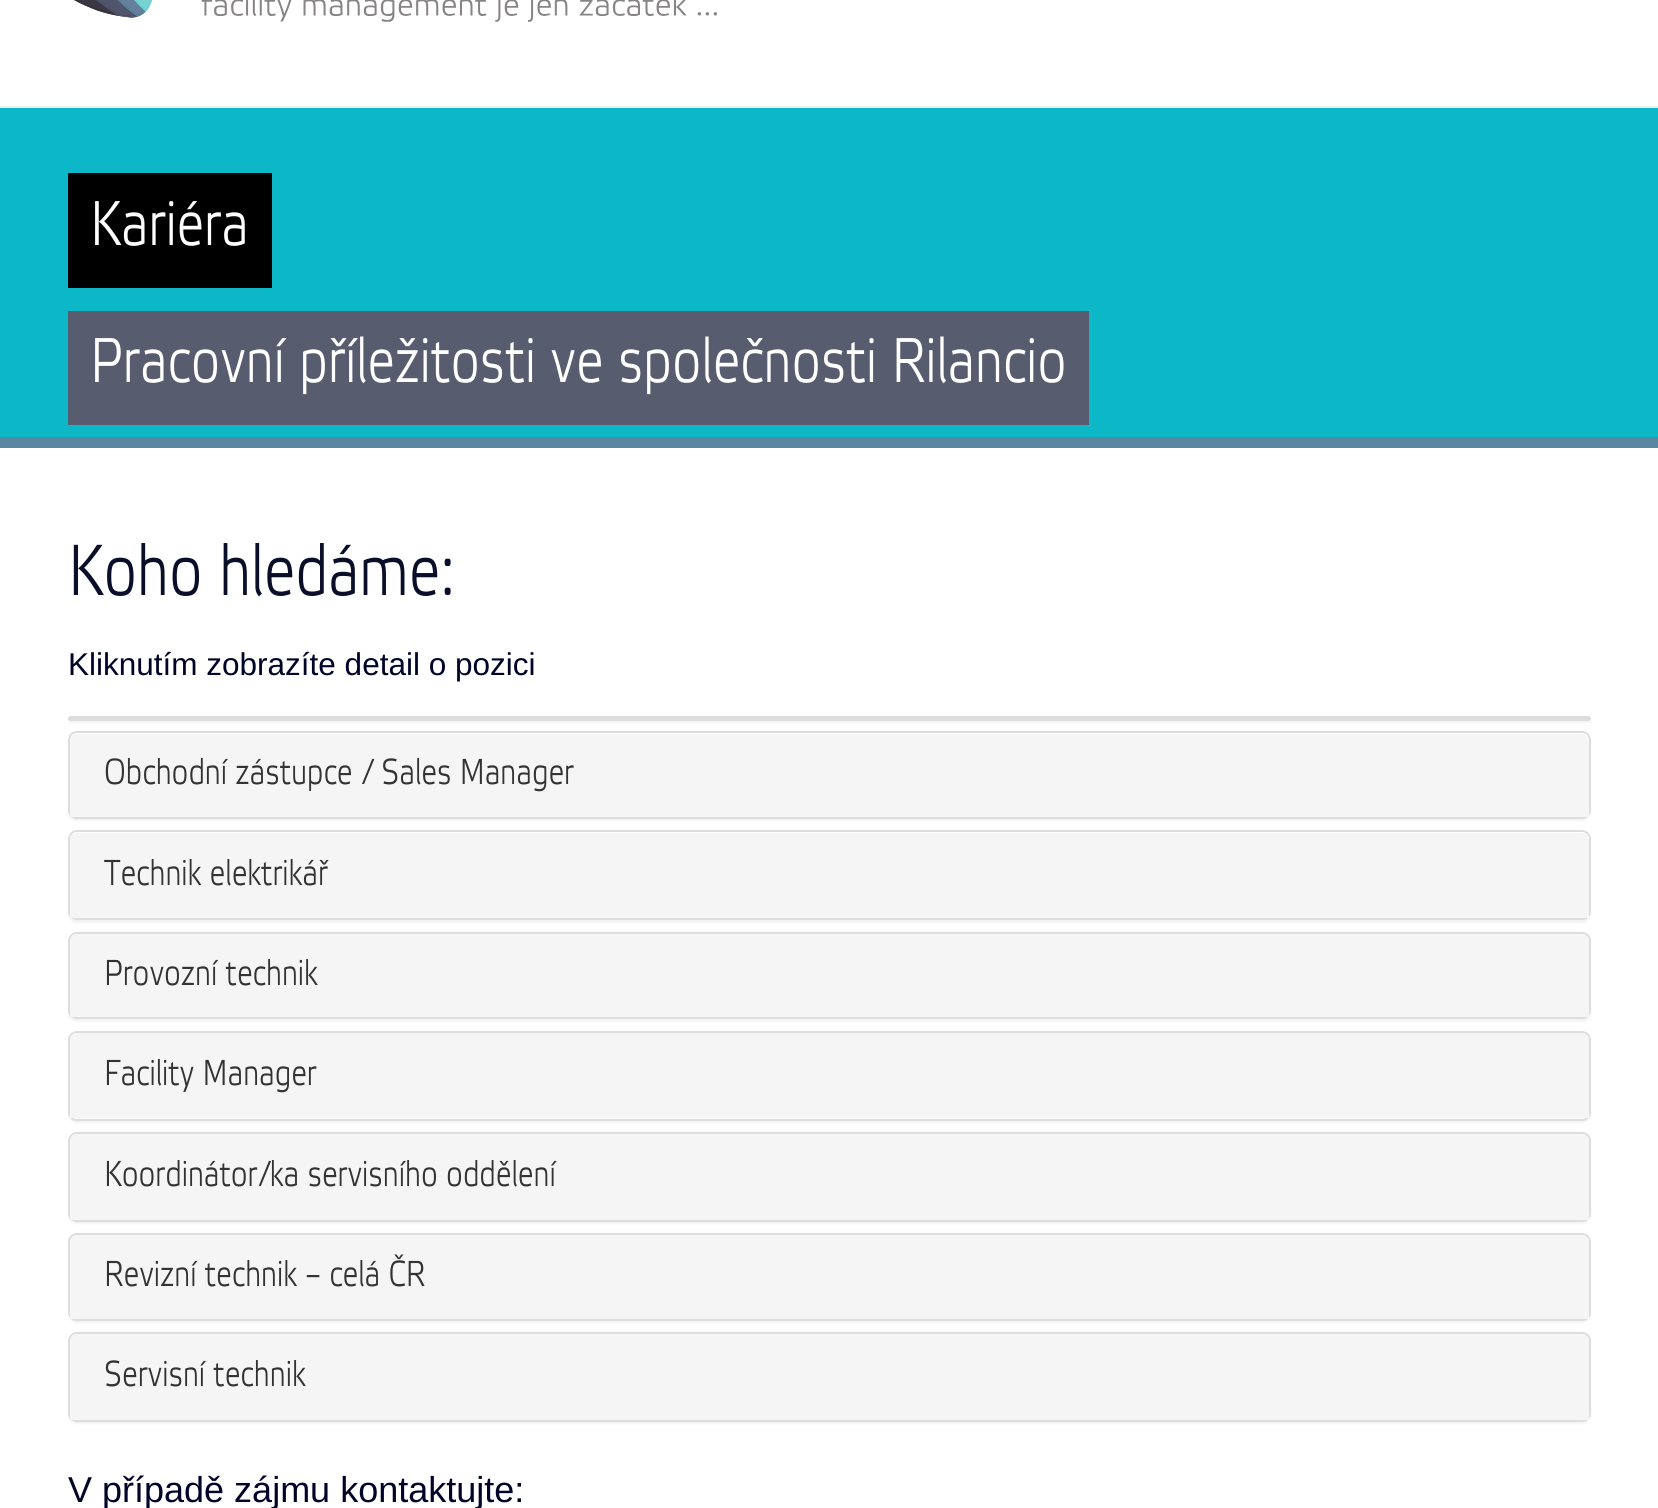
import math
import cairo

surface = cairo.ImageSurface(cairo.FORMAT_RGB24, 1658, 1508)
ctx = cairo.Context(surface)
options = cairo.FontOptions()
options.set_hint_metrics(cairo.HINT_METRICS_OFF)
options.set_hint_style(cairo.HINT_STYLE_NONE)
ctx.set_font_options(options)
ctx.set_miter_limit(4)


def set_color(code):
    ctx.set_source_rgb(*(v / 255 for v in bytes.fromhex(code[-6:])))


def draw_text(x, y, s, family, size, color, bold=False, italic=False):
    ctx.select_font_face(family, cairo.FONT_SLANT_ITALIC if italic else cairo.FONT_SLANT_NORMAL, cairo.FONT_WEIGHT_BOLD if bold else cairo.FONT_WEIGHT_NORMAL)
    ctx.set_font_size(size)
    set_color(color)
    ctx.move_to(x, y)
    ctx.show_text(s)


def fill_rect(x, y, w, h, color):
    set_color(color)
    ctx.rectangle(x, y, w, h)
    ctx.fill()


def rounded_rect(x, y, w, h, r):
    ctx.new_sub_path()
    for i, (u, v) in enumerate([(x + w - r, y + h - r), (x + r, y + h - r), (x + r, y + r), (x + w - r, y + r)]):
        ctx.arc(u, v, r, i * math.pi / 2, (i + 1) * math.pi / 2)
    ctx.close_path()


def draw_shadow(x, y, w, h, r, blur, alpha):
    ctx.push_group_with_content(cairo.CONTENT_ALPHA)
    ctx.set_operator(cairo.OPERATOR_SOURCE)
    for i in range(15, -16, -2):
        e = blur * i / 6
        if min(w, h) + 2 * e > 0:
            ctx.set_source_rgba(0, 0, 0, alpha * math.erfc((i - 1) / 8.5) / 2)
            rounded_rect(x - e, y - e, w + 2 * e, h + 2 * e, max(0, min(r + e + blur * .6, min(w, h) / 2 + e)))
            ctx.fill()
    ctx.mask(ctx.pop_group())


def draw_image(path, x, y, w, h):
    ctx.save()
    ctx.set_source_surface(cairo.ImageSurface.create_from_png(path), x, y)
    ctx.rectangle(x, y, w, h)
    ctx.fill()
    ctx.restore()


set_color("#ffffff")
ctx.paint()
fill_rect(0, 106, 1658, 2, "#eeeeee")
draw_image("assets/img1.png", 74, 0, 643, 22)
fill_rect(0, 108, 1658, 329, "#0cb7c7")
fill_rect(0, 437, 1658, 11, "#58869f")
fill_rect(68, 173, 204, 115, "#000000")
draw_text(90, 245, "Kariéra", "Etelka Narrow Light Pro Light", 63, "#ffffff")
fill_rect(68, 311, 1021, 114, "#575c6f")
draw_text(90, 382, "Pracovní příležitosti ve společnosti Rilancio", "Etelka Narrow Light Pro Light", 63, "#ffffff")
draw_text(68, 595, "Koho hledáme:", "Etelka Narrow Light Pro Light", 72, "#0a0f29")
draw_text(68, 675, "Kliknutím zobrazíte detail o pozici", "Liberation Sans", 31.5, "#000428")
set_color("#000000")
draw_shadow(68, 718, 1523, 5, 2.5, 1, 0.05)
set_color("#dddddd")
rounded_rect(68, 716, 1523, 5, 2.5)
ctx.fill()
set_color("#000000")
draw_shadow(68, 734, 1523, 87, 9, 1, 0.05)
set_color("#ffffff")
rounded_rect(69, 732, 1521, 86, 8)
ctx.fill_preserve()
set_color("#dddddd")
ctx.stroke()
set_color("#f5f5f5")
ctx.new_path()
ctx.move_to(77, 734)
ctx.line_to(1582, 734)
ctx.curve_to(1586, 734, 1589, 737, 1589, 741)
ctx.line_to(1589, 817)
ctx.line_to(70, 817)
ctx.line_to(70, 741)
ctx.curve_to(70, 737, 73, 734, 77, 734)
ctx.close_path()
ctx.fill()
draw_text(104, 784, "Obchodní zástupce / Sales Manager", "Etelka Narrow Light Pro Light", 36, "#333333")
set_color("#000000")
draw_shadow(68, 833, 1523, 90, 9, 1, 0.05)
set_color("#ffffff")
rounded_rect(69, 831, 1521, 88, 8)
ctx.fill_preserve()
set_color("#dddddd")
ctx.stroke()
set_color("#f5f5f5")
ctx.new_path()
ctx.move_to(77, 833)
ctx.line_to(1582, 833)
ctx.curve_to(1586, 833, 1589, 836, 1589, 840)
ctx.line_to(1589, 918)
ctx.line_to(70, 918)
ctx.line_to(70, 840)
ctx.curve_to(70, 836, 73, 833, 77, 833)
ctx.close_path()
ctx.fill()
draw_text(104, 885, "Technik elektrikář", "Etelka Narrow Light Pro Light", 36, "#333333")
set_color("#000000")
draw_shadow(68, 934, 1523, 88, 9, 1, 0.05)
rounded_rect(69, 933, 1521, 85, 8)
set_color("#dddddd")
ctx.stroke()
set_color("#f5f5f5")
ctx.new_path()
ctx.move_to(77, 934)
ctx.line_to(1582, 934)
ctx.curve_to(1586, 934, 1589, 937, 1589, 941)
ctx.line_to(1589, 1017)
ctx.line_to(70, 1017)
ctx.line_to(70, 941)
ctx.curve_to(70, 937, 73, 934, 77, 934)
ctx.close_path()
ctx.fill()
draw_text(104, 985, "Provozní technik", "Etelka Narrow Light Pro Light", 36, "#333333")
set_color("#000000")
draw_shadow(68, 1033, 1523, 90, 9, 1, 0.05)
set_color("#ffffff")
rounded_rect(69, 1032, 1521, 88, 8)
ctx.fill_preserve()
set_color("#dddddd")
ctx.stroke()
set_color("#f5f5f5")
ctx.new_path()
ctx.move_to(77, 1033)
ctx.line_to(1582, 1033)
ctx.curve_to(1586, 1033, 1589, 1036, 1589, 1040)
ctx.line_to(1589, 1118)
ctx.line_to(70, 1118)
ctx.line_to(70, 1040)
ctx.curve_to(70, 1036, 73, 1033, 77, 1033)
ctx.close_path()
ctx.fill()
draw_text(104, 1085, "Facility Manager", "Etelka Narrow Light Pro Light", 36, "#333333")
set_color("#000000")
draw_shadow(68, 1134, 1523, 90, 9, 1, 0.05)
rounded_rect(69, 1133, 1521, 88, 8)
set_color("#dddddd")
ctx.stroke()
set_color("#f5f5f5")
ctx.new_path()
ctx.move_to(77, 1134)
ctx.line_to(1582, 1134)
ctx.curve_to(1586, 1134, 1589, 1137, 1589, 1141)
ctx.line_to(1589, 1220)
ctx.line_to(70, 1220)
ctx.line_to(70, 1141)
ctx.curve_to(70, 1137, 73, 1134, 77, 1134)
ctx.close_path()
ctx.fill()
draw_text(104, 1186, "Koordinátor/ka servisního oddělení", "Etelka Narrow Light Pro Light", 36, "#333333")
set_color("#000000")
draw_shadow(68, 1235, 1523, 88, 9, 1, 0.05)
rounded_rect(69, 1234, 1521, 86, 8)
set_color("#dddddd")
ctx.stroke()
set_color("#f5f5f5")
ctx.new_path()
ctx.move_to(77, 1235)
ctx.line_to(1582, 1235)
ctx.curve_to(1586, 1235, 1589, 1238, 1589, 1242)
ctx.line_to(1589, 1319)
ctx.line_to(70, 1319)
ctx.line_to(70, 1242)
ctx.curve_to(70, 1238, 73, 1235, 77, 1235)
ctx.close_path()
ctx.fill()
draw_text(104, 1286, "Revizní technik – celá ČR", "Etelka Narrow Light Pro Light", 36, "#333333")
set_color("#000000")
draw_shadow(68, 1334, 1523, 90, 9, 1, 0.05)
rounded_rect(69, 1333, 1521, 88, 8)
set_color("#dddddd")
ctx.stroke()
set_color("#f5f5f5")
ctx.new_path()
ctx.move_to(77, 1334)
ctx.line_to(1582, 1334)
ctx.curve_to(1586, 1334, 1589, 1337, 1589, 1341)
ctx.line_to(1589, 1420)
ctx.line_to(70, 1420)
ctx.line_to(70, 1341)
ctx.curve_to(70, 1337, 73, 1334, 77, 1334)
ctx.close_path()
ctx.fill()
draw_text(104, 1386, "Servisní technik", "Etelka Narrow Light Pro Light", 36, "#333333")
draw_text(68, 1502, "V případě zájmu kontaktujte:", "Liberation Sans", 36, "#000428")
surface.write_to_png("output.png")
